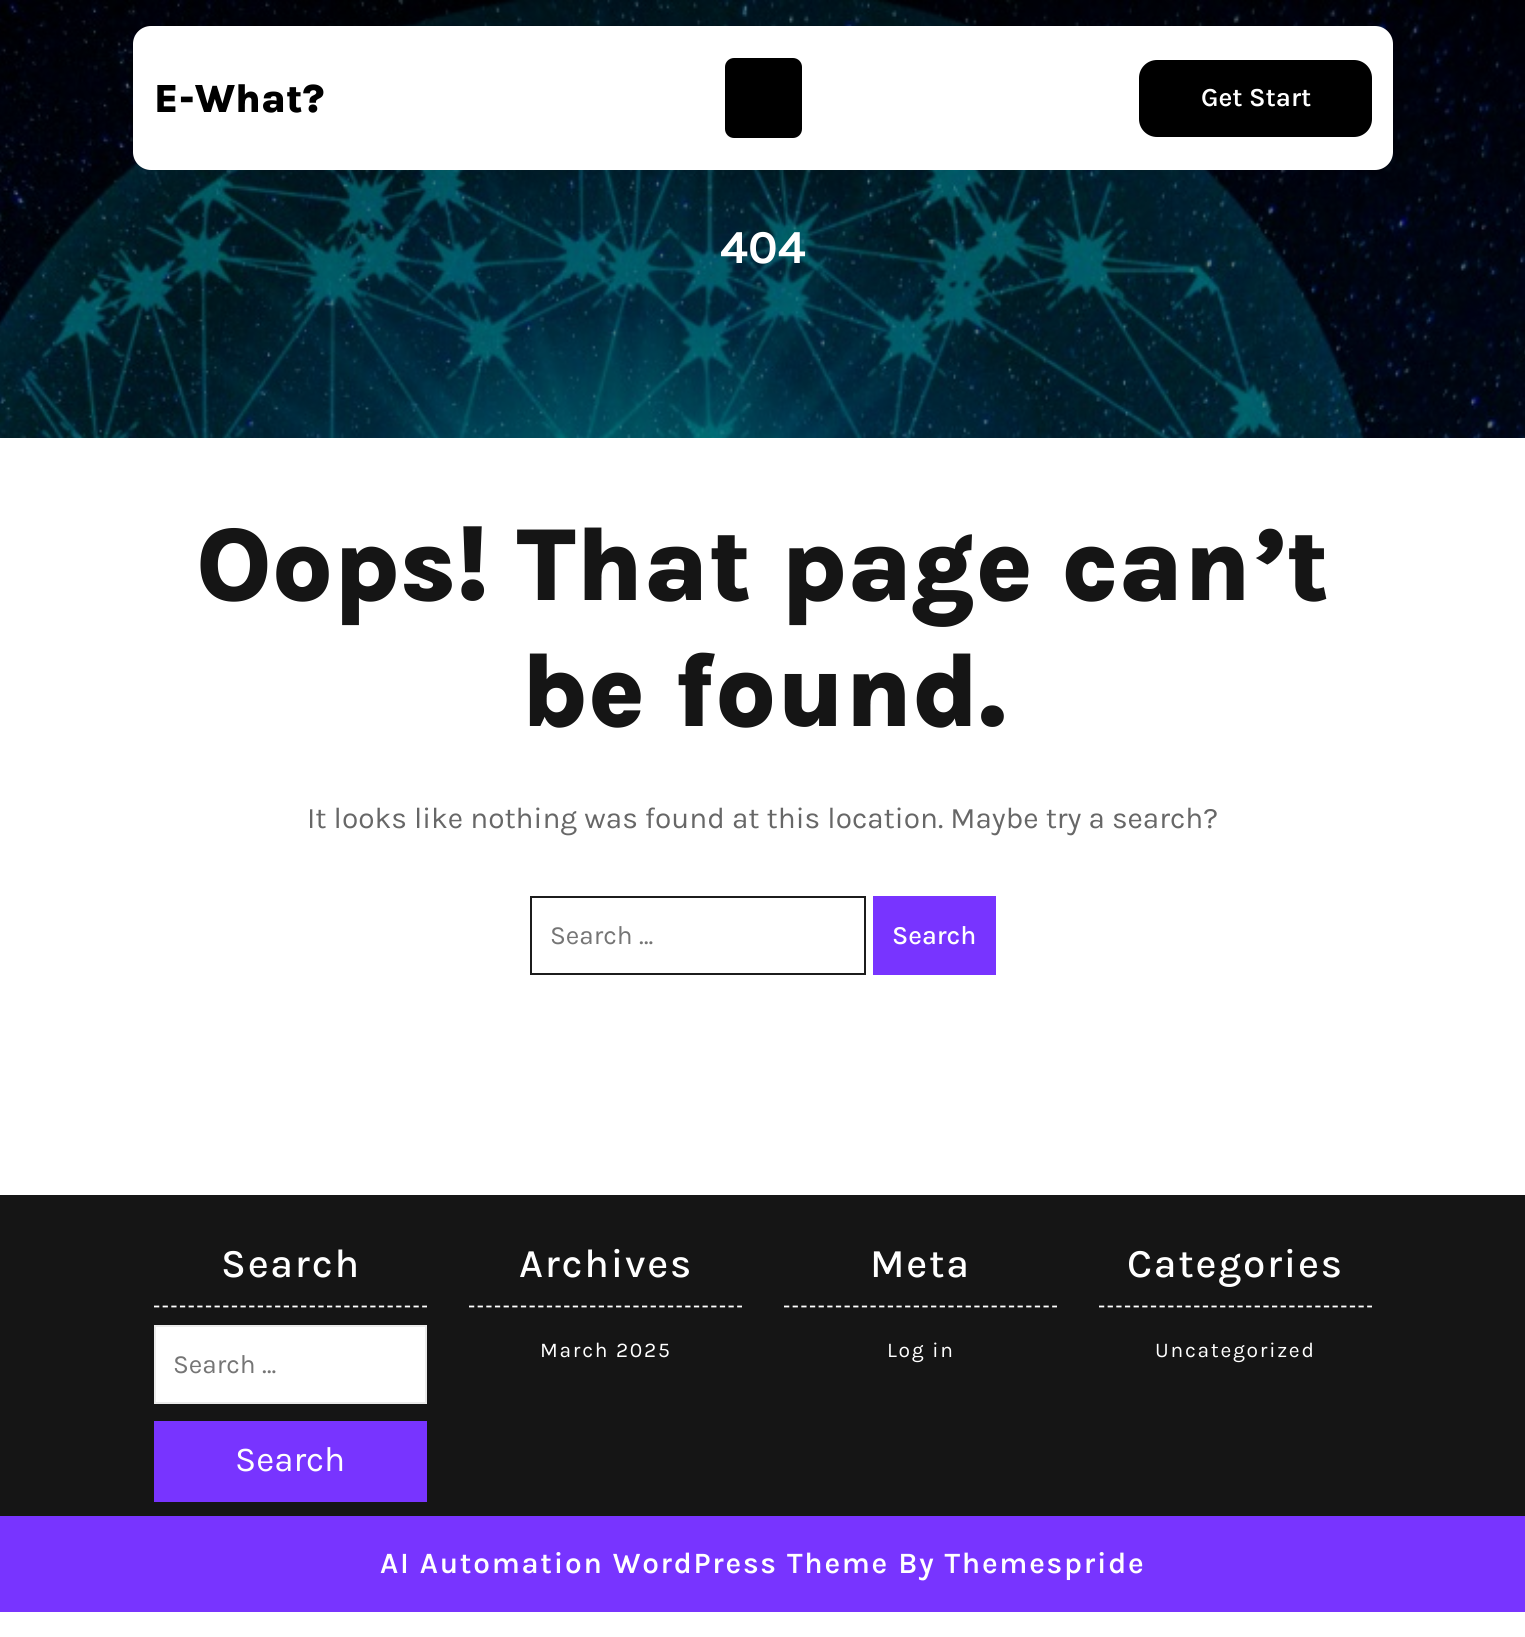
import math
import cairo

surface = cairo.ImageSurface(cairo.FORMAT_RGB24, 1525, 1637)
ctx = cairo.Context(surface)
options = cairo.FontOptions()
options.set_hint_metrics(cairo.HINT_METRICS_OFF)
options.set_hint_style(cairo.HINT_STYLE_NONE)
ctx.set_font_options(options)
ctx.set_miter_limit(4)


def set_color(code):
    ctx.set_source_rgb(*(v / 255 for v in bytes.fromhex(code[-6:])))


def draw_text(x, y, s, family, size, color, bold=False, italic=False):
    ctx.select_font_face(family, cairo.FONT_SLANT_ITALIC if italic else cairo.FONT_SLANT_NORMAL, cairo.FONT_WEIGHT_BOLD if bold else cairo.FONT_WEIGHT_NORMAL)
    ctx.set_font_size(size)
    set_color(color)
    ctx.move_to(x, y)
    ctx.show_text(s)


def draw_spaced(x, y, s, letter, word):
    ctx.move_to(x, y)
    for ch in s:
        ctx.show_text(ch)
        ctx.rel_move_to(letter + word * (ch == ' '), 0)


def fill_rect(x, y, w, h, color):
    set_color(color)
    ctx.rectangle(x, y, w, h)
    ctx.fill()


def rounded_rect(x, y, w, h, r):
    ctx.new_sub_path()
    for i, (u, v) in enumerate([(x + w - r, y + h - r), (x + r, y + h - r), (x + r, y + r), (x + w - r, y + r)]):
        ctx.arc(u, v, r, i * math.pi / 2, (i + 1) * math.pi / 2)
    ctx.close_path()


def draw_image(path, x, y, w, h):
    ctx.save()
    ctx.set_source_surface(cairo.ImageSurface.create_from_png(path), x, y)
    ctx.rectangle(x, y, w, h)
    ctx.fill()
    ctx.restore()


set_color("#ffffff")
ctx.paint()
fill_rect(0, 0, 1525, 438, "#000000")
draw_image("assets/img1.png", 0, 0, 1525, 438)
set_color("#ffffff")
rounded_rect(133, 26, 1260, 144, 18)
ctx.fill()
draw_text(154, 112, "E-What?", "Karla ExtraBold", 40.25, "#000000")
rounded_rect(725, 58, 77, 80, 9)
ctx.fill()
rounded_rect(1139, 60, 233, 77, 18)
ctx.fill()
draw_text(1201, 106, "Get Start", "Karla SemiBold", 26.25, "#ffffff")
draw_text(720, 263, "404", "Karla", 47, "#ffffff", bold=True)
draw_text(196, 600, "Oops! That page can’t", "Karla ExtraBold", 105, "#151515")
draw_text(521, 726, "be found.", "Karla ExtraBold", 105, "#151515")
draw_text(307, 828, "It looks like nothing was found at this location. Maybe try a search?", "Karla", 29.75, "#676767")
ctx.rectangle(531, 897, 334, 77)
set_color("#1c1c1c")
ctx.stroke()
draw_text(550, 944, "Search …", "Karla", 26.25, "#757575")
fill_rect(873, 896, 123, 79, "#7834ff")
draw_text(892, 944, "Search", "Karla Medium", 26.25, "#ffffff")
fill_rect(0, 1195, 1525, 321, "#151515")
ctx.new_path()
ctx.move_to(154, 1306.5)
ctx.line_to(427, 1306.5)
set_color("#ffffff")
ctx.set_line_width(1.8)
ctx.set_dash([5.25, 3.4])
ctx.stroke()
ctx.set_font_size(40.25)
draw_spaced(221, 1277, "Search", 1.75, 0)
ctx.rectangle(155, 1326, 271, 77)
ctx.fill_preserve()
set_color("#ebebeb")
ctx.set_line_width(2)
ctx.set_dash([])
ctx.stroke()
draw_text(173, 1373, "Search …", "Karla", 26.25, "#757575")
fill_rect(154, 1421, 273, 81, "#7834ff")
draw_text(235, 1471, "Search", "Karla", 35, "#ffffff")
ctx.new_path()
ctx.move_to(469, 1306.5)
ctx.line_to(742, 1306.5)
ctx.set_line_width(1.8)
ctx.set_dash([5.25, 3.4])
ctx.stroke()
ctx.select_font_face("Karla Medium")
ctx.set_font_size(40.25)
draw_spaced(519, 1277, "Archives", 1.75, 0)
ctx.select_font_face("Karla")
ctx.set_font_size(21)
draw_spaced(540, 1357, "March 2025", 1.75, 0)
ctx.new_path()
ctx.move_to(784, 1306.5)
ctx.line_to(1057, 1306.5)
ctx.stroke()
ctx.select_font_face("Karla Medium")
ctx.set_font_size(40.25)
draw_spaced(870, 1277, "Meta", 1.75, 0)
ctx.select_font_face("Karla")
ctx.set_font_size(21)
draw_spaced(887, 1357, "Log in", 1.75, 0)
ctx.new_path()
ctx.move_to(1099, 1306.5)
ctx.line_to(1372, 1306.5)
ctx.stroke()
ctx.select_font_face("Karla Medium")
ctx.set_font_size(40.25)
draw_spaced(1127, 1277, "Categories", 1.75, 0)
ctx.select_font_face("Karla")
ctx.set_font_size(21)
draw_spaced(1155, 1357, "Uncategorized", 1.75, 0)
fill_rect(0, 1516, 1525, 96, "#7834ff")
ctx.select_font_face("Karla SemiBold")
ctx.set_font_size(29.75)
set_color("#ffffff")
draw_spaced(380, 1573, "AI Automation WordPress Theme By Themespride", 1.75, 0)
surface.write_to_png("output.png")
